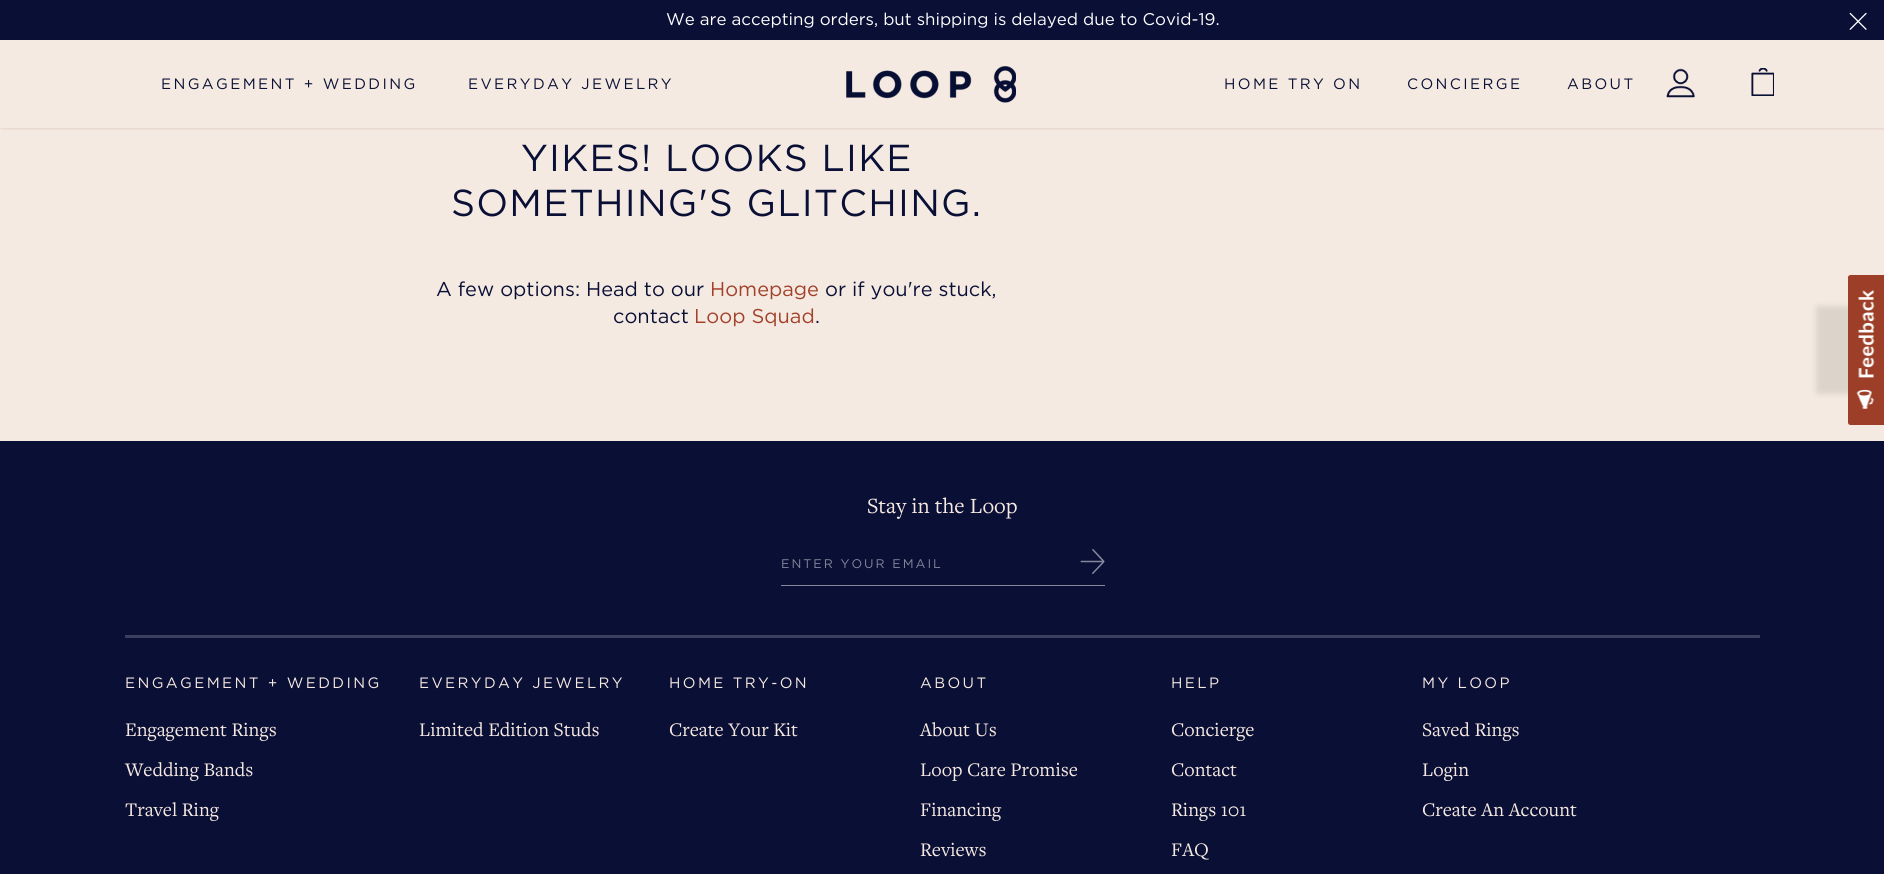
import math
import cairo

surface = cairo.ImageSurface(cairo.FORMAT_RGB24, 1884, 874)
ctx = cairo.Context(surface)
options = cairo.FontOptions()
options.set_hint_metrics(cairo.HINT_METRICS_OFF)
options.set_hint_style(cairo.HINT_STYLE_NONE)
ctx.set_font_options(options)
ctx.set_miter_limit(4)


def set_color(code):
    ctx.set_source_rgb(*(v / 255 for v in bytes.fromhex(code[-6:])))


def draw_text(x, y, s, family, size, color, bold=False, italic=False):
    ctx.select_font_face(family, cairo.FONT_SLANT_ITALIC if italic else cairo.FONT_SLANT_NORMAL, cairo.FONT_WEIGHT_BOLD if bold else cairo.FONT_WEIGHT_NORMAL)
    ctx.set_font_size(size)
    set_color(color)
    ctx.move_to(x, y)
    ctx.show_text(s)


def draw_spaced(x, y, s, letter, word):
    ctx.move_to(x, y)
    for ch in s:
        ctx.show_text(ch)
        ctx.rel_move_to(letter + word * (ch == ' '), 0)


def fill_rect(x, y, w, h, color):
    set_color(color)
    ctx.rectangle(x, y, w, h)
    ctx.fill()


def rounded_rect(x, y, w, h, r):
    ctx.new_sub_path()
    for i, (u, v) in enumerate([(x + w - r, y + h - r), (x + r, y + h - r), (x + r, y + r), (x + w - r, y + r)]):
        ctx.arc(u, v, r, i * math.pi / 2, (i + 1) * math.pi / 2)
    ctx.close_path()


def draw_shadow(x, y, w, h, r, blur, alpha):
    ctx.push_group_with_content(cairo.CONTENT_ALPHA)
    ctx.set_operator(cairo.OPERATOR_SOURCE)
    for i in range(15, -16, -2):
        e = blur * i / 6
        if min(w, h) + 2 * e > 0:
            ctx.set_source_rgba(0, 0, 0, alpha * math.erfc((i - 1) / 8.5) / 2)
            rounded_rect(x - e, y - e, w + 2 * e, h + 2 * e, max(0, min(r + e + blur * .6, min(w, h) / 2 + e)))
            ctx.fill()
    ctx.mask(ctx.pop_group())


def draw_image(path, x, y, w, h):
    ctx.save()
    ctx.set_source_surface(cairo.ImageSurface.create_from_png(path), x, y)
    ctx.rectangle(x, y, w, h)
    ctx.fill()
    ctx.restore()


set_color("#f4eae1")
ctx.paint()
set_color("#d5b9aa")
draw_shadow(1, 1, 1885, 128, 0, 1, 0.47)
fill_rect(0, 40, 1884, 88, "#f4eae1")
fill_rect(0, 0, 1884, 40, "#0a0f36")
draw_text(666, 25, "We are accepting orders, but shipping is delayed due to Covid-19.", "Gotham", 16.9, "#ffffff")
draw_image("assets/img1.png", 1849, 12, 18, 18)
ctx.set_font_size(15)
set_color("#0a0f36")
draw_spaced(161, 89, "ENGAGEMENT + WEDDING", 2.4, 0)
draw_spaced(468, 89, "EVERYDAY JEWELRY", 2.4, 0)
draw_image("assets/img2.png", 846, 66, 170, 37)
draw_spaced(1224, 89, "HOME TRY ON", 2.4, 0)
draw_spaced(1407, 89, "CONCIERGE", 2.4, 0)
draw_spaced(1567, 89, "ABOUT", 2.4, 0)
draw_image("assets/img3.png", 1666, 68, 29, 30)
draw_image("assets/img4.png", 1751, 68, 23, 28)
ctx.set_font_size(37.5)
draw_spaced(521, 171, "YIKES! LOOKS LIKE", 1.25, 0)
draw_spaced(451, 216, "SOMETHING'S GLITCHING.", 1.25, 0)
draw_text(436, 296, "A few options: Head to our", "Gotham", 20, "#0a0f36")
draw_text(710, 296, "Homepage", "Gotham", 20, "#a3402a")
draw_text(825, 296, "or if you're stuck,", "Gotham", 20, "#0a0f36")
draw_text(613, 323, "contact", "Gotham", 20, "#0a0f36")
draw_text(694, 323, "Loop Squad", "Gotham", 20, "#a3402a")
draw_text(815, 323, ".", "Gotham", 20, "#0a0f36")
fill_rect(0, 441, 1884, 433, "#0a0f36")
draw_text(867, 513, "Stay in the Loop", "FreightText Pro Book", 22.5, "#f6e9e1")
ctx.select_font_face("Gotham")
ctx.set_font_size(12.5)
set_color("#84879a")
draw_spaced(781, 568, "ENTER YOUR EMAIL", 2, 0)
draw_image("assets/img5.png", 1080, 549, 25, 25)
fill_rect(781, 585, 324, 1, "#85879b")
fill_rect(125, 635, 1635, 3, "#3b3f5e")
ctx.set_font_size(15)
set_color("#f6e9e1")
draw_spaced(125, 688, "ENGAGEMENT + WEDDING", 2.4, 0)
draw_text(125, 736, "Engagement Rings", "FreightText Pro Book", 20, "#f6e9e1")
draw_text(125, 776, "Wedding Bands", "FreightText Pro Book", 20, "#f6e9e1")
draw_text(125, 816, "Travel Ring", "FreightText Pro Book", 20, "#f6e9e1")
ctx.select_font_face("Gotham")
ctx.set_font_size(15)
draw_spaced(419, 688, "EVERYDAY JEWELRY", 2.4, 0)
draw_text(419, 736, "Limited Edition Studs", "FreightText Pro Book", 20, "#f6e9e1")
ctx.select_font_face("Gotham")
ctx.set_font_size(15)
draw_spaced(669, 688, "HOME TRY-ON", 2.4, 0)
draw_text(669, 736, "Create Your Kit", "FreightText Pro Book", 20, "#f6e9e1")
ctx.select_font_face("Gotham")
ctx.set_font_size(15)
draw_spaced(920, 688, "ABOUT", 2.4, 0)
draw_text(920, 736, "About Us", "FreightText Pro Book", 20, "#f6e9e1")
draw_text(920, 776, "Loop Care Promise", "FreightText Pro Book", 20, "#f6e9e1")
draw_text(920, 816, "Financing", "FreightText Pro Book", 20, "#f6e9e1")
draw_text(920, 856, "Reviews", "FreightText Pro Book", 20, "#f6e9e1")
ctx.select_font_face("Gotham")
ctx.set_font_size(15)
draw_spaced(1171, 688, "HELP", 2.4, 0)
draw_text(1171, 736, "Concierge", "FreightText Pro Book", 20, "#f6e9e1")
draw_text(1171, 776, "Contact", "FreightText Pro Book", 20, "#f6e9e1")
draw_text(1171, 816, "Rings 101", "FreightText Pro Book", 20, "#f6e9e1")
draw_text(1171, 856, "FAQ", "FreightText Pro Book", 20, "#f6e9e1")
ctx.select_font_face("Gotham")
ctx.set_font_size(15)
draw_spaced(1422, 688, "MY LOOP", 2.4, 0)
draw_text(1422, 736, "Saved Rings", "FreightText Pro Book", 20, "#f6e9e1")
draw_text(1422, 776, "Login", "FreightText Pro Book", 20, "#f6e9e1")
draw_text(1422, 816, "Create An Account", "FreightText Pro Book", 20, "#f6e9e1")
set_color("#000000")
draw_shadow(1816, 306, 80, 88, 2.5, 3, 0.1)
draw_image("assets/img6.png", 1848, 275, 36, 150)
surface.write_to_png("output.png")
